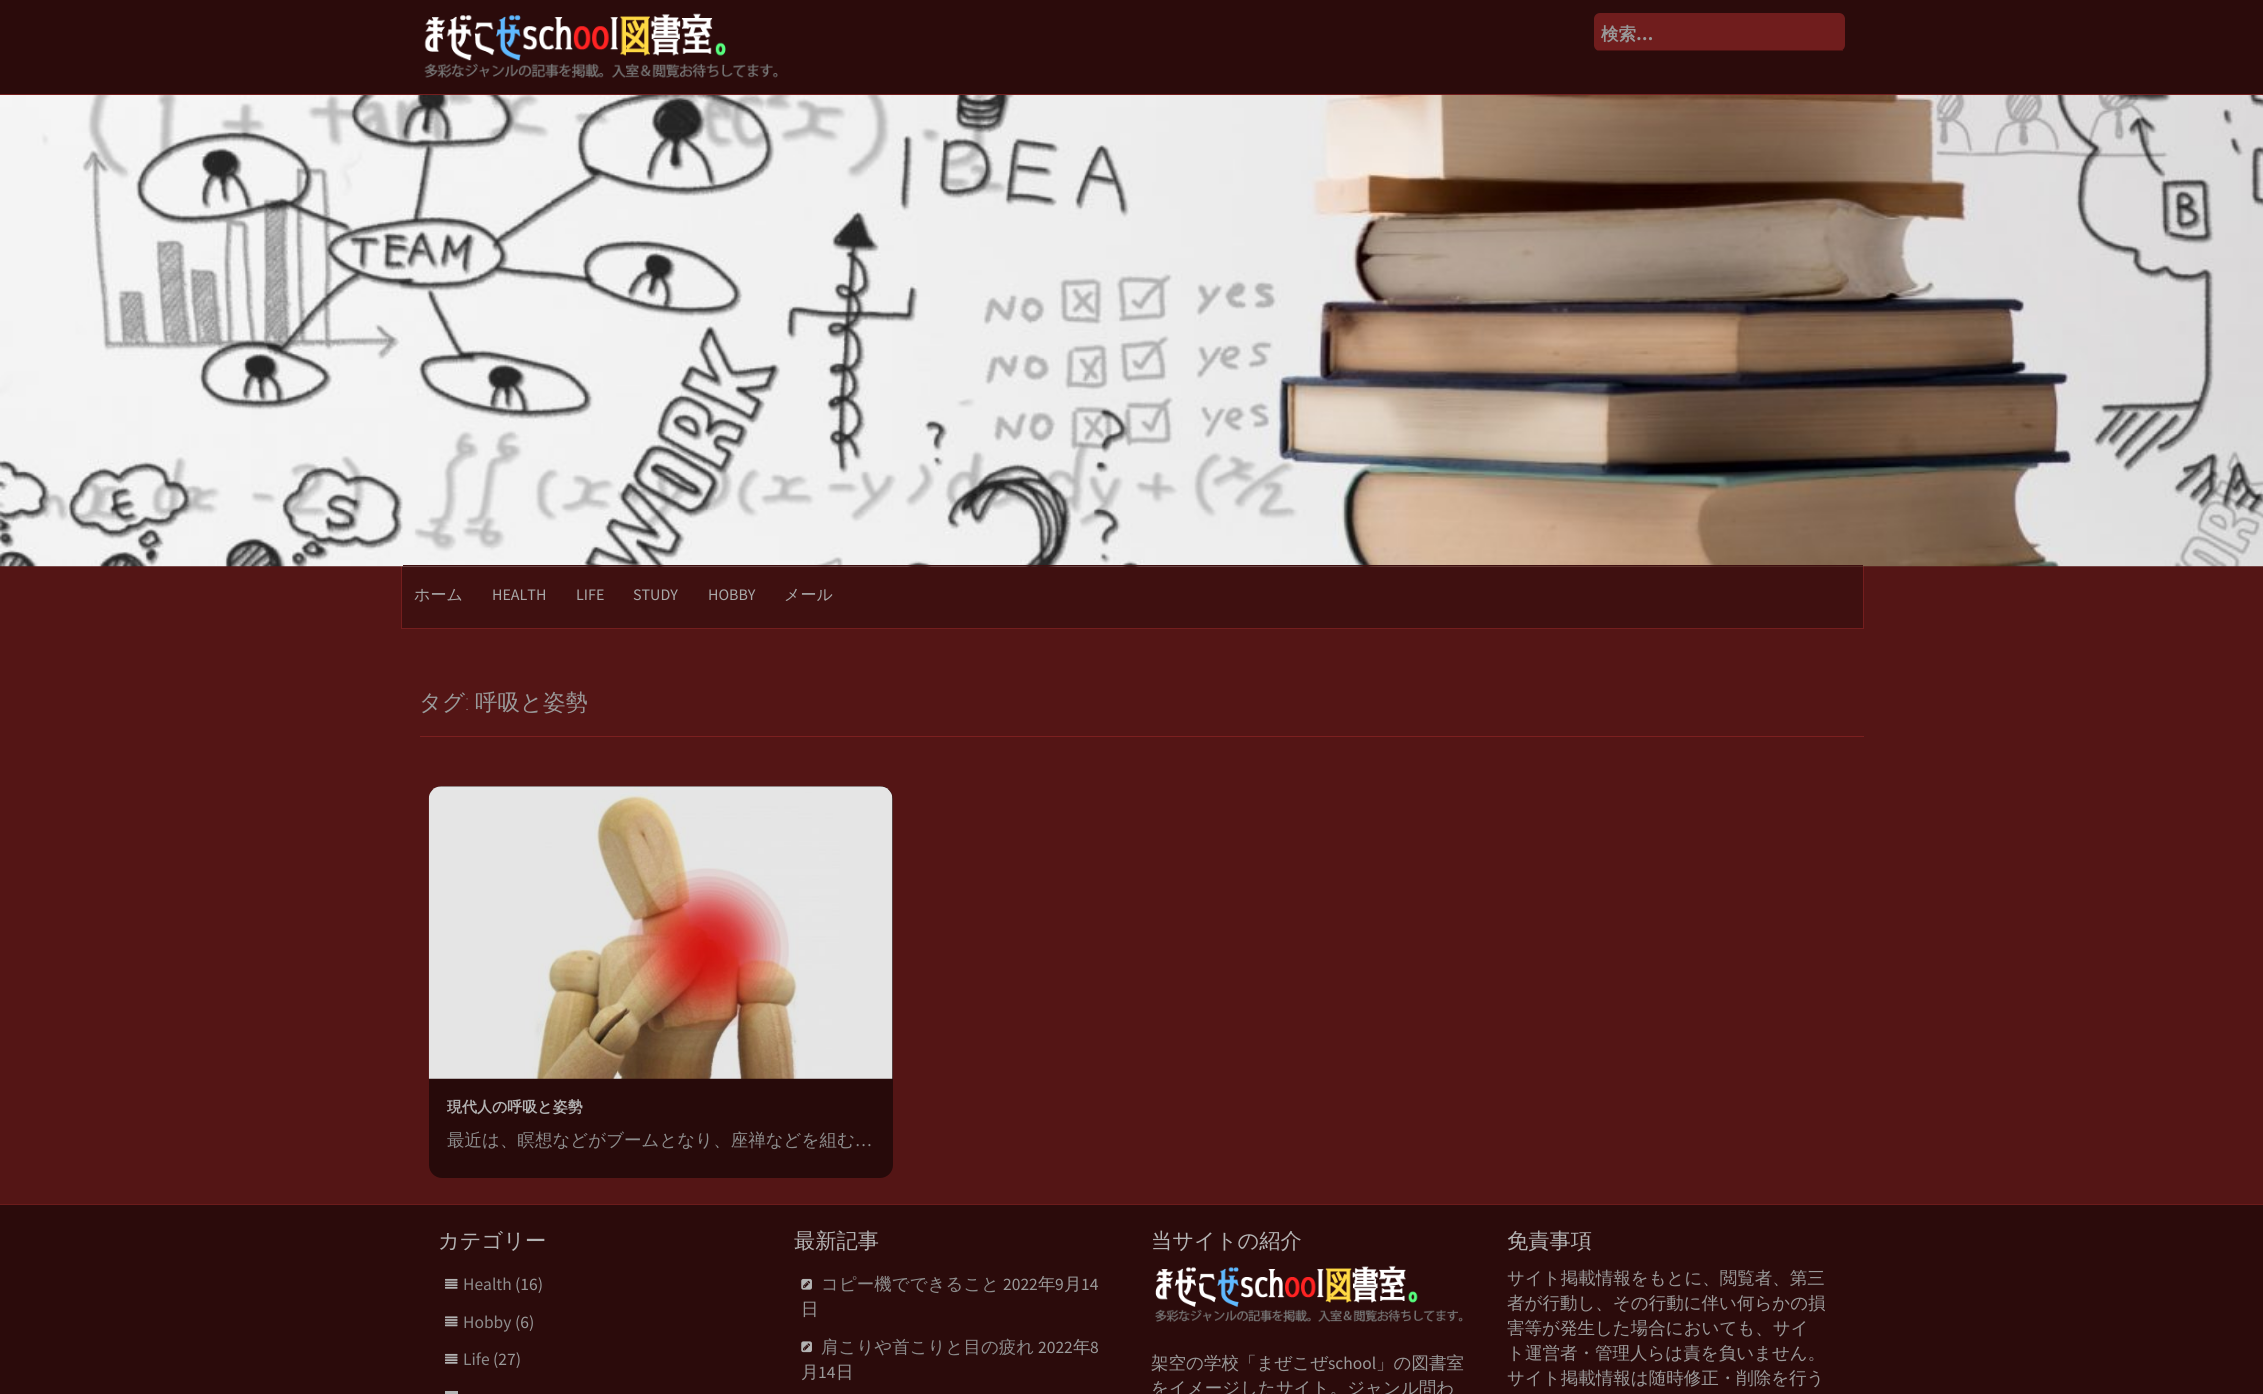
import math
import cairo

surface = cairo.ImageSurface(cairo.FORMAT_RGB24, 2263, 1394)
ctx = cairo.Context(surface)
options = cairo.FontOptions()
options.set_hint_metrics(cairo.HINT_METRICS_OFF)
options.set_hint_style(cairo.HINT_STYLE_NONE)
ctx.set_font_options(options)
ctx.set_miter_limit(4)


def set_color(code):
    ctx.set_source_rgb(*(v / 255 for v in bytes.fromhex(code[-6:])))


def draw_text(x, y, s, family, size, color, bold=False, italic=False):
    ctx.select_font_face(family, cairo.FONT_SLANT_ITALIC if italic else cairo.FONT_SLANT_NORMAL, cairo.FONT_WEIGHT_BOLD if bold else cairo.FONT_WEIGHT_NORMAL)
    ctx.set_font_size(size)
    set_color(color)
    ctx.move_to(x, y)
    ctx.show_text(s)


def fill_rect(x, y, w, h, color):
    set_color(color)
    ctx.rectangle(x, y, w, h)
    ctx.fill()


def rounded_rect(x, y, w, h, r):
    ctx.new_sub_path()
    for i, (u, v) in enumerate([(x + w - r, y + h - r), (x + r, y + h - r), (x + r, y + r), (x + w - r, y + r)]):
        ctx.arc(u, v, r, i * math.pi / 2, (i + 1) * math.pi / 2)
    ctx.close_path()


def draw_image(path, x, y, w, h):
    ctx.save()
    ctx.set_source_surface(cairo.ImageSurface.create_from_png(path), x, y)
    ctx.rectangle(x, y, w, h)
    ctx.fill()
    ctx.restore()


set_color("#541515")
ctx.paint()
fill_rect(0, 0, 2263, 94, "#2b0b0b")
fill_rect(0, 94, 2263, 1, "#741e1e")
draw_image("assets/img1.png", 424, 13, 354, 65)
set_color("#701d1d")
rounded_rect(1594, 13, 251, 38, 6)
ctx.fill()
fill_rect(1598, 50, 245, 1, "#4c1313")
draw_text(1601, 40, "検索", "WenQuanYi Zen Hei", 17.5, "#999999", bold=True)
draw_text(1636, 40, "…", "Source Sans Pro", 17.5, "#999999", bold=True)
fill_rect(402, 566, 1461, 62, "#3f1010")
fill_rect(1863, 566, 1, 63, "#741e1e")
fill_rect(401, 628, 1463, 1, "#741e1e")
fill_rect(401, 566, 1, 63, "#741e1e")
draw_image("assets/img2.png", 0, 95, 2263, 472)
fill_rect(403, 565, 1460, 1, "#3f1010")
draw_text(414, 600, "ホーム", "WenQuanYi Zen Hei Medium", 16, "#a8a8a8")
draw_text(492, 600, "HEALTH", "Source Sans Pro", 16, "#a8a8a8")
draw_text(576, 600, "LIFE", "Source Sans Pro", 16, "#a8a8a8")
draw_text(633, 600, "STUDY", "Source Sans Pro", 16, "#a8a8a8")
draw_text(708, 600, "HOBBY", "Source Sans Pro", 16, "#a8a8a8")
draw_text(784, 600, "メール", "WenQuanYi Zen Hei Medium", 16, "#a8a8a8")
fill_rect(420, 736, 1444, 1, "#7c2020")
draw_text(419, 710, "タグ", "WenQuanYi Zen Hei Medium", 22.5, "#999999")
draw_text(465, 710, ":", "Montserrat Thin", 22.5, "#999999")
draw_text(475, 710, "呼吸と姿勢", "WenQuanYi Zen Hei Medium", 22.5, "#999999")
set_color("#270a0a")
rounded_rect(429, 786, 464, 392, 13)
ctx.fill()
draw_image("assets/img3.png", 428, 786, 465, 293)
draw_text(447, 1112, "現代人の呼吸と姿勢", "WenQuanYi Zen Hei", 15, "#b3b3b3", bold=True)
draw_text(447, 1146, "最近は、瞑想などがブームとなり、座禅などを組む", "WenQuanYi Zen Hei Medium", 17.5, "#8c8c8c")
draw_text(855, 1146, "…", "Source Sans Pro", 17.5, "#8c8c8c")
fill_rect(0, 1205, 2263, 189, "#2b0b0b")
fill_rect(0, 1204, 2263, 1, "#6c1c1c")
draw_text(438, 1248, "カテゴリー", "WenQuanYi Zen Hei Medium", 21.25, "#b3b3b3")
draw_image("assets/img4.png", 445, 1278, 13, 11)
draw_text(463, 1290, "Health", "Source Sans Pro", 17.5, "#8c8c8c")
draw_text(515, 1290, "(16)", "Source Sans Pro", 17.5, "#999999")
draw_image("assets/img5.png", 445, 1316, 13, 11)
draw_text(463, 1328, "Hobby", "Source Sans Pro", 17.5, "#8c8c8c")
draw_text(515, 1328, "(6)", "Source Sans Pro", 17.5, "#999999")
draw_image("assets/img4.png", 445, 1353, 13, 11)
draw_text(463, 1365, "Life", "Source Sans Pro", 17.5, "#8c8c8c")
draw_text(493, 1365, "(27)", "Source Sans Pro", 17.5, "#999999")
fill_rect(445, 1391, 13, 3, "#b3b3b3")
draw_text(794, 1248, "最新記事", "WenQuanYi Zen Hei Medium", 21.25, "#b3b3b3")
draw_image("assets/img6.png", 801, 1278, 11, 12)
draw_text(821, 1290, "コピー機でできること", "WenQuanYi Zen Hei Medium", 17.5, "#8c8c8c")
draw_text(1003, 1290, "2022", "Source Sans Pro", 17.5, "#999999")
draw_text(1038, 1290, "年", "WenQuanYi Zen Hei Medium", 17.5, "#999999")
draw_text(1055, 1290, "9", "Source Sans Pro", 17.5, "#999999")
draw_text(1064, 1290, "月", "WenQuanYi Zen Hei Medium", 17.5, "#999999")
draw_text(1081, 1290, "14", "Source Sans Pro", 17.5, "#999999")
draw_text(801, 1315, "日", "WenQuanYi Zen Hei Medium", 17.5, "#999999")
draw_image("assets/img7.png", 801, 1341, 11, 12)
draw_text(821, 1353, "肩こりや首こりと目の疲れ", "WenQuanYi Zen Hei Medium", 17.5, "#8c8c8c")
draw_text(1038, 1353, "2022", "Source Sans Pro", 17.5, "#999999")
draw_text(1073, 1353, "年", "WenQuanYi Zen Hei Medium", 17.5, "#999999")
draw_text(1090, 1353, "8", "Source Sans Pro", 17.5, "#999999")
draw_text(801, 1378, "月", "WenQuanYi Zen Hei Medium", 17.5, "#999999")
draw_text(818, 1378, "14", "Source Sans Pro", 17.5, "#999999")
draw_text(836, 1378, "日", "WenQuanYi Zen Hei Medium", 17.5, "#999999")
draw_text(1151, 1248, "当サイトの紹介", "WenQuanYi Zen Hei Medium", 21.25, "#b3b3b3")
draw_image("assets/img8.png", 1155, 1265, 308, 57)
draw_text(1151, 1369, "架空の学校「まぜこぜ", "WenQuanYi Zen Hei Medium", 17.5, "#999999")
draw_text(1328, 1369, "school", "Source Sans Pro", 17.5, "#999999")
draw_text(1376, 1369, "」の図書室", "WenQuanYi Zen Hei Medium", 17.5, "#999999")
draw_text(1151, 1394, "をイメージしたサイト。ジャンル問わ", "WenQuanYi Zen Hei Medium", 17.5, "#999999")
draw_text(1507, 1248, "免責事項", "WenQuanYi Zen Hei Medium", 21.25, "#b3b3b3")
draw_text(1507, 1284, "サイト掲載情報をもとに、閲覧者、第三", "WenQuanYi Zen Hei Medium", 17.5, "#999999")
draw_text(1507, 1309, "者が行動し、その行動に伴い何らかの損", "WenQuanYi Zen Hei Medium", 17.5, "#999999")
draw_text(1507, 1334, "害等が発生した場合においても、サイ", "WenQuanYi Zen Hei Medium", 17.5, "#999999")
draw_text(1507, 1359, "ト運営者・管理人らは責を負いません。", "WenQuanYi Zen Hei Medium", 17.5, "#999999")
draw_text(1507, 1384, "サイト掲載情報は随時修正・削除を行う", "WenQuanYi Zen Hei Medium", 17.5, "#999999")
surface.write_to_png("output.png")
